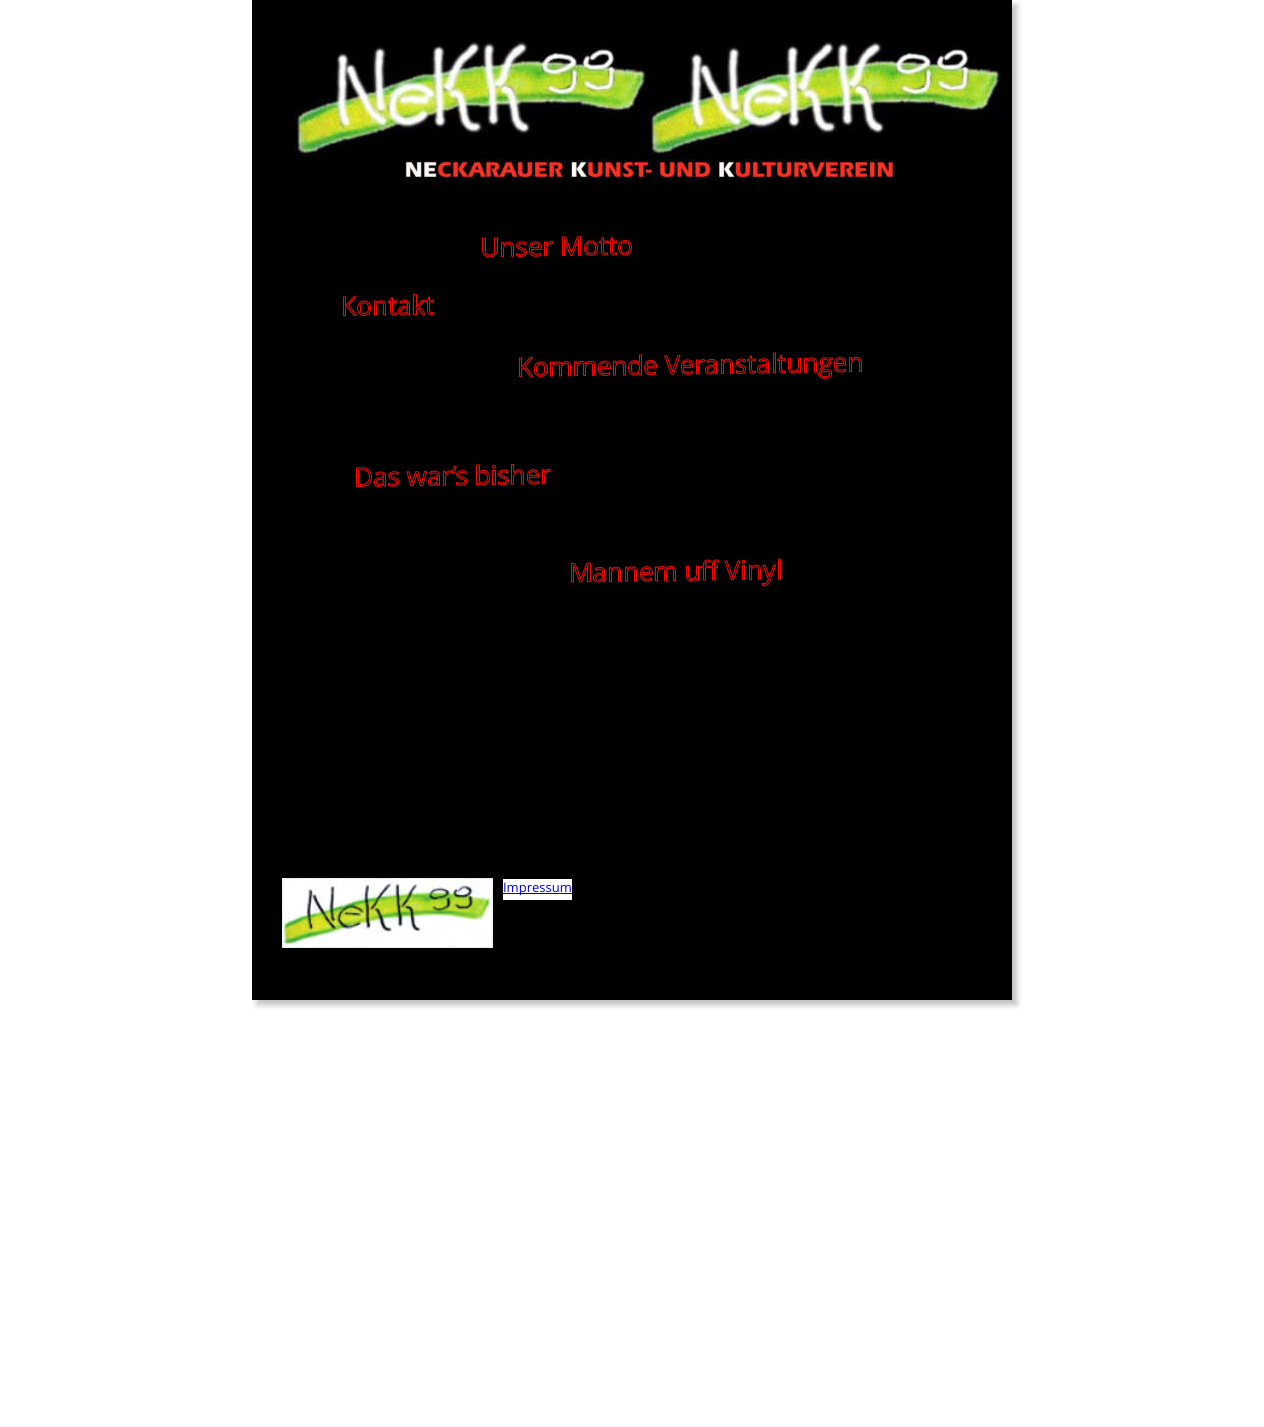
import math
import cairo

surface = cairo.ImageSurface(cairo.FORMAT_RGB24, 1264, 1427)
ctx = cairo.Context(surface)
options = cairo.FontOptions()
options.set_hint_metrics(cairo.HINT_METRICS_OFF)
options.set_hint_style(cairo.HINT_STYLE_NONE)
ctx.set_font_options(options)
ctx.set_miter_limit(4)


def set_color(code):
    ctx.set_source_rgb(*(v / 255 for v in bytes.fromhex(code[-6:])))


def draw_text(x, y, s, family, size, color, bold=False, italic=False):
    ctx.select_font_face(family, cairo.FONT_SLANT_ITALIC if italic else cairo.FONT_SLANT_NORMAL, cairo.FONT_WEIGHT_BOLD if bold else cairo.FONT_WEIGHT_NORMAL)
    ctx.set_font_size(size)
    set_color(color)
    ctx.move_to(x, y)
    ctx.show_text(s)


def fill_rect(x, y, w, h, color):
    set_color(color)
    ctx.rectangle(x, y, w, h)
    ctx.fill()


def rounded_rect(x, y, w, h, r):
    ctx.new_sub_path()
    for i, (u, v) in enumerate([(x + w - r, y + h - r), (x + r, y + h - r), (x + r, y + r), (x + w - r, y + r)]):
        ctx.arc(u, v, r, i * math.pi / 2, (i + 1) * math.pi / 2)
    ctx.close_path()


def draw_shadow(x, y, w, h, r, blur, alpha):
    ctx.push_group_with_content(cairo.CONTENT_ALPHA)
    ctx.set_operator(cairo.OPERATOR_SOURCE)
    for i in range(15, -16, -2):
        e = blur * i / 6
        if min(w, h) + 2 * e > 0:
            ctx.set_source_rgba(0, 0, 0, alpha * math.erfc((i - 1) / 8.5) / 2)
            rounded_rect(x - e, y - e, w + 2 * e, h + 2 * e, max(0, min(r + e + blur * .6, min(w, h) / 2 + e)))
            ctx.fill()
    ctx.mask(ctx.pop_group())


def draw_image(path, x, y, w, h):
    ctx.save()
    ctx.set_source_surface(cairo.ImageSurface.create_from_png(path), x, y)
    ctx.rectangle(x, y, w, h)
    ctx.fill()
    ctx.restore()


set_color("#ffffff")
ctx.paint()
set_color("#000000")
draw_shadow(257, 5, 760, 1000, 0, 3, 0.25)
fill_rect(252, 0, 760, 1000, "#000000")
draw_image("assets/img1.png", 295, 38, 352, 121)
draw_image("assets/img1.png", 649, 38, 352, 121)
draw_image("assets/img2.png", 400, 159, 496, 23)
draw_image("assets/img3.png", 482, 236, 150, 22)
draw_image("assets/img4.png", 343, 294, 92, 22)
draw_image("assets/img5.png", 519, 352, 343, 27)
draw_image("assets/img6.png", 356, 463, 195, 24)
draw_image("assets/img7.png", 571, 558, 210, 28)
draw_image("assets/img8.png", 282, 878, 211, 70)
fill_rect(503, 879, 69, 21, "#ffffff")
fill_rect(503, 893, 69, 1, "#0000ee")
draw_text(503, 892, "Impressum", "Open Sans", 13, "#0000ee")
surface.write_to_png("output.png")
